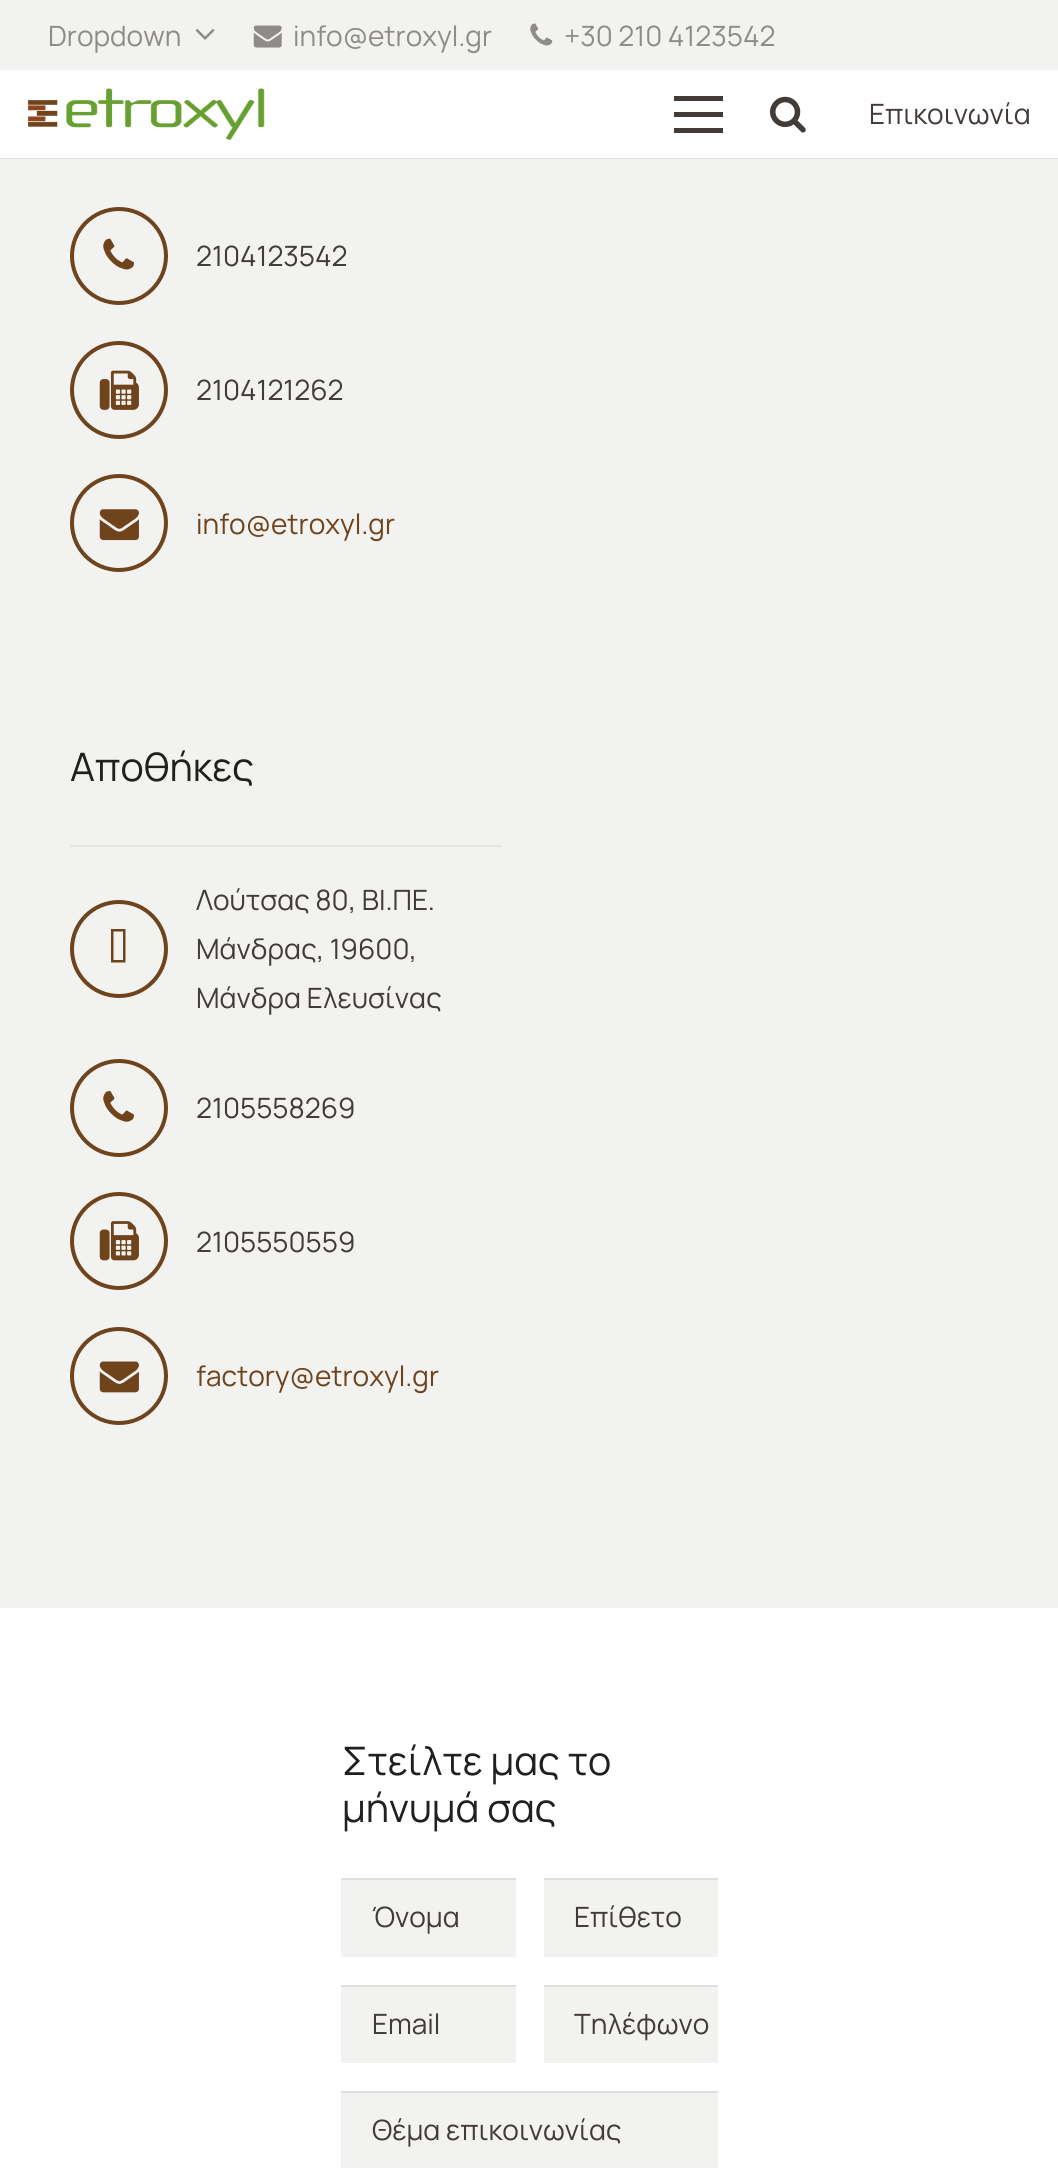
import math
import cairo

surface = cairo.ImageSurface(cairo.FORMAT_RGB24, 1058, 2182)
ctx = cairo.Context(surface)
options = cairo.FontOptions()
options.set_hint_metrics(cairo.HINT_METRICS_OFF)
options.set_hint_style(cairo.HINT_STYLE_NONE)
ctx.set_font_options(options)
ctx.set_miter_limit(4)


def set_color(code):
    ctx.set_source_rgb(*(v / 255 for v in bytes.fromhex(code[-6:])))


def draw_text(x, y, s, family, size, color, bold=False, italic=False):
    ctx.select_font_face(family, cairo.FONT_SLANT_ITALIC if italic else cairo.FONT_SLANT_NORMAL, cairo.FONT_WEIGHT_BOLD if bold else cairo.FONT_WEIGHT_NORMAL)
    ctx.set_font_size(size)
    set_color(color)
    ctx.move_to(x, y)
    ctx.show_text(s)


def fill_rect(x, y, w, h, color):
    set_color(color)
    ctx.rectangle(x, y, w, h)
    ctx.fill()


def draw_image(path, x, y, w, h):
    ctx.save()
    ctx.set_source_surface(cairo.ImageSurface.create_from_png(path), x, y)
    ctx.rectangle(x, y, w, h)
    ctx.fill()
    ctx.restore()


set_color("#ffffff")
ctx.paint()
fill_rect(0, 0, 1058, 70, "#f2f2f0")
draw_text(48, 46, "Dropdown", "Manrope", 28, "#8f8b88")
draw_image("assets/img1.png", 195, 29, 20, 11)
draw_image("assets/img2.png", 253, 25, 29, 23)
draw_text(293, 46, "info@etroxyl.gr", "Manrope", 28, "#8f8b88")
draw_image("assets/img3.png", 530, 23, 23, 23)
draw_text(564, 46, "+30 210 4123542", "Manrope", 28, "#8f8b88")
fill_rect(0, 158, 1058, 1450, "#f2f2f0")
ctx.set_source_rgba(0, 0, 0, 0.08)
ctx.new_path()
ctx.move_to(0, 158)
ctx.line_to(0, 159)
ctx.line_to(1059, 159)
ctx.line_to(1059, 72)
ctx.line_to(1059, 158)
ctx.close_path()
ctx.fill()
draw_image("assets/img4.png", 28, 88, 237, 52)
fill_rect(674, 112, 49, 5, "#423b38")
fill_rect(674, 96, 49, 5, "#423b38")
fill_rect(674, 128, 49, 5, "#423b38")
draw_image("assets/img5.png", 770, 96, 36, 37)
draw_text(869, 124, "Επικοινωνία", "Manrope", 28, "#423b38")
ctx.new_path()
ctx.arc(119, 256, 47, 0, 2 * math.pi)
set_color("#6f431c")
ctx.set_line_width(4)
ctx.stroke()
draw_image("assets/img6.png", 103, 238, 31, 32)
draw_text(196, 266, "2104123542", "Manrope", 28, "#423b38")
ctx.new_path()
ctx.arc(119, 390, 47, 0, 2 * math.pi)
set_color("#6f431c")
ctx.stroke()
draw_image("assets/img7.png", 99, 370, 40, 40)
draw_text(196, 400, "2104121262", "Manrope", 28, "#423b38")
ctx.new_path()
ctx.arc(119, 523, 47, 0, 2 * math.pi)
set_color("#6f431c")
ctx.stroke()
draw_image("assets/img8.png", 99, 509, 40, 32)
draw_text(196, 534, "info@etroxyl.gr", "Manrope", 28, "#6f431c")
draw_text(70, 781, "Αποθήκες", "Manrope", 39.25, "#21201e")
fill_rect(70, 845, 432, 2, "#e8e5e1")
ctx.new_path()
ctx.arc(119, 949, 47, 0, 2 * math.pi)
set_color("#6f431c")
ctx.stroke()
ctx.new_path()
ctx.move_to(113.5, 960)
ctx.line_to(113.5, 931.5)
ctx.line_to(123, 931.5)
ctx.line_to(123, 960)
ctx.close_path()
ctx.move_to(111, 962.5)
ctx.line_to(125.5, 962.5)
ctx.line_to(125.5, 929)
ctx.line_to(111, 929)
ctx.close_path()
ctx.fill()
draw_text(196, 910, "Λούτσας 80, ΒΙ.ΠΕ.", "Manrope", 28, "#423b38")
draw_text(196, 959, "Μάνδρας, 19600,", "Manrope", 28, "#423b38")
draw_text(196, 1008, "Μάνδρα Ελευσίνας", "Manrope", 28, "#423b38")
ctx.new_path()
ctx.arc(119, 1108, 47, 0, 2 * math.pi)
set_color("#6f431c")
ctx.stroke()
draw_image("assets/img9.png", 103, 1091, 31, 31)
draw_text(196, 1118, "2105558269", "Manrope", 28, "#423b38")
ctx.new_path()
ctx.arc(119, 1241, 47, 0, 2 * math.pi)
set_color("#6f431c")
ctx.stroke()
draw_image("assets/img10.png", 99, 1221, 40, 40)
draw_text(196, 1252, "2105550559", "Manrope", 28, "#423b38")
ctx.new_path()
ctx.arc(119, 1376, 47, 0, 2 * math.pi)
set_color("#6f431c")
ctx.stroke()
draw_image("assets/img11.png", 99, 1361, 40, 32)
draw_text(196, 1386, "factory@etroxyl.gr", "Manrope", 28, "#6f431c")
draw_text(342, 1775, "Στείλτε μας το", "Manrope", 39.25, "#21201e")
draw_text(342, 1822, "μήνυμά σας", "Manrope", 39.25, "#21201e")
fill_rect(341, 1880, 175, 77, "#f2f2f0")
fill_rect(341, 1878, 175, 2, "#dfdfdd")
draw_text(372, 1927, "Όνομα", "Manrope", 28, "#423b38")
fill_rect(544, 1880, 174, 77, "#f2f2f0")
fill_rect(544, 1878, 174, 2, "#dfdfdd")
draw_text(574, 1927, "Επίθετο", "Manrope", 28, "#423b38")
fill_rect(341, 1987, 175, 76, "#f2f2f0")
fill_rect(341, 1985, 175, 2, "#dfdfdd")
draw_text(372, 2034, "Email", "Manrope", 28, "#423b38")
fill_rect(544, 1987, 174, 76, "#f2f2f0")
fill_rect(544, 1985, 174, 2, "#dfdfdd")
draw_text(574, 2034, "Τηλέφωνο", "Manrope", 28, "#423b38")
fill_rect(341, 2093, 377, 75, "#f2f2f0")
fill_rect(341, 2091, 377, 2, "#dfdfdd")
draw_text(372, 2140, "Θέμα επικοινωνίας", "Manrope", 28, "#423b38")
surface.write_to_png("output.png")
